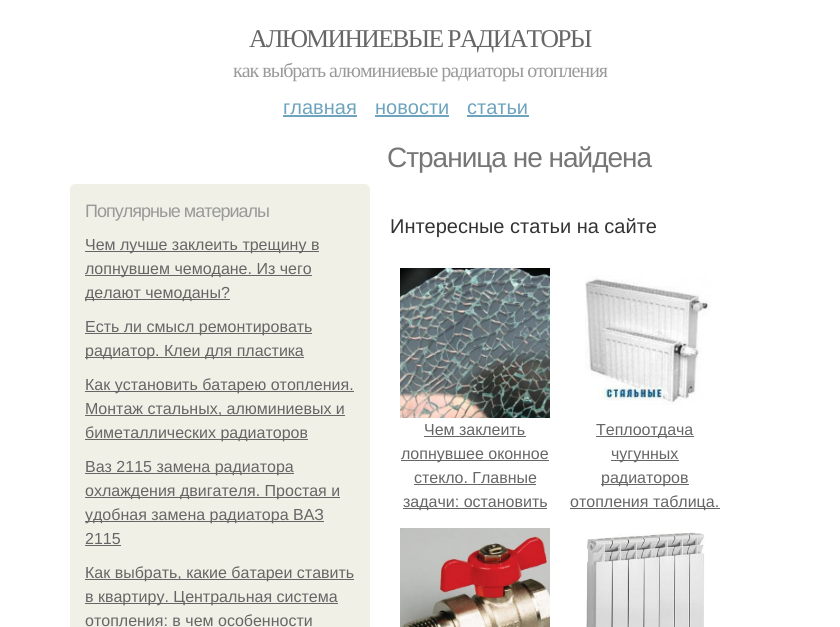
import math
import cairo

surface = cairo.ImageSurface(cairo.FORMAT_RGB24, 840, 627)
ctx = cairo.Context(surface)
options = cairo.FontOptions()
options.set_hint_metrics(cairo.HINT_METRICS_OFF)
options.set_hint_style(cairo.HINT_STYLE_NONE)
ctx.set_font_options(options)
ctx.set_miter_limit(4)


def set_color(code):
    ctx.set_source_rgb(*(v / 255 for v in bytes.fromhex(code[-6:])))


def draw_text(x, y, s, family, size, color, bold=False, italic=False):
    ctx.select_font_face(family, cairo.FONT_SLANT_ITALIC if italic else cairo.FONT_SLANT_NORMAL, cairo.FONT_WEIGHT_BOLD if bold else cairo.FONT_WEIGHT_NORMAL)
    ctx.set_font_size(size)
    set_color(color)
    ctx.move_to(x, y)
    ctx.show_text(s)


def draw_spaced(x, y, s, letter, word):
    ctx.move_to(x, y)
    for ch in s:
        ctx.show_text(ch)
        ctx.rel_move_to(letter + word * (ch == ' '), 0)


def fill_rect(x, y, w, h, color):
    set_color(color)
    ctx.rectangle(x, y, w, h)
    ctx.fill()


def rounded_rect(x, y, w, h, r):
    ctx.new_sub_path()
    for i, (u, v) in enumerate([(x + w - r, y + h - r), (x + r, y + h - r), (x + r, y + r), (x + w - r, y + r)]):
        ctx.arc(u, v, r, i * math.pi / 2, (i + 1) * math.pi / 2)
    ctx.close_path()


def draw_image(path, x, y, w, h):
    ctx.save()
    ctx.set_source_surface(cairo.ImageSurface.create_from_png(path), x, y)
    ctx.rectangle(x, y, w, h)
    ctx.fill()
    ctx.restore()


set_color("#ffffff")
ctx.paint()
ctx.select_font_face("Liberation Serif")
ctx.set_font_size(25.6)
set_color("#666666")
draw_spaced(249, 47, "АЛЮМИНИЕВЫЕ РАДИАТОРЫ", -1.6, 0)
ctx.set_font_size(20)
set_color("#999999")
draw_spaced(233, 77, "как выбрать алюминиевые радиаторы отопления", -1, 0)
draw_text(283, 114, "главная", "Liberation Sans", 20, "#6da3bd")
fill_rect(283, 115, 74, 2, "#6da3bd")
draw_text(375, 114, "новости", "Liberation Sans", 20, "#6da3bd")
fill_rect(375, 115, 74, 2, "#6da3bd")
draw_text(467, 114, "статьи", "Liberation Sans", 20, "#6da3bd")
fill_rect(467, 115, 62, 2, "#6da3bd")
ctx.set_font_size(28)
set_color("#767676")
draw_spaced(387, 167, "Страница не найдена", -1, 0)
set_color("#f0f0e7")
rounded_rect(70, 184, 300, 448, 5)
ctx.fill()
ctx.set_font_size(18)
set_color("#999999")
draw_spaced(85, 217, "Популярные материалы", -1, 0)
fill_rect(85, 251, 234, 1, "#666666")
draw_text(85, 250, "Чем лучше заклеить трещину в", "Liberation Sans", 16, "#666666")
fill_rect(85, 275, 227, 1, "#666666")
draw_text(85, 274, "лопнувшем чемодане. Из чего", "Liberation Sans", 16, "#666666")
fill_rect(85, 299, 145, 1, "#666666")
draw_text(85, 298, "делают чемоданы?", "Liberation Sans", 16, "#666666")
fill_rect(85, 333, 227, 1, "#666666")
draw_text(85, 332, "Есть ли смысл ремонтировать", "Liberation Sans", 16, "#666666")
fill_rect(85, 357, 219, 1, "#666666")
draw_text(85, 356, "радиатор. Клеи для пластика", "Liberation Sans", 16, "#666666")
fill_rect(85, 391, 269, 1, "#666666")
draw_text(85, 390, "Как установить батарею отопления.", "Liberation Sans", 16, "#666666")
fill_rect(85, 415, 260, 1, "#666666")
draw_text(85, 414, "Монтаж стальных, алюминиевых и", "Liberation Sans", 16, "#666666")
fill_rect(85, 439, 223, 1, "#666666")
draw_text(85, 438, "биметаллических радиаторов", "Liberation Sans", 16, "#666666")
fill_rect(85, 473, 209, 1, "#666666")
draw_text(85, 472, "Ваз 2115 замена радиатора", "Liberation Sans", 16, "#666666")
fill_rect(85, 497, 255, 1, "#666666")
draw_text(85, 496, "охлаждения двигателя. Простая и", "Liberation Sans", 16, "#666666")
fill_rect(85, 521, 239, 1, "#666666")
draw_text(85, 520, "удобная замена радиатора ВАЗ", "Liberation Sans", 16, "#666666")
draw_text(85, 544, "2115", "Liberation Sans", 16, "#666666")
fill_rect(85, 545, 36, 1, "#666666")
fill_rect(85, 579, 269, 1, "#666666")
draw_text(85, 578, "Как выбрать, какие батареи ставить", "Liberation Sans", 16, "#666666")
fill_rect(85, 603, 253, 1, "#666666")
draw_text(85, 602, "в квартиру. Центральная система", "Liberation Sans", 16, "#666666")
draw_text(85, 626, "отопления: в чем особенности", "Liberation Sans", 16, "#666666")
draw_text(390, 233, "Интересные статьи на сайте", "Liberation Sans", 20, "#333333")
draw_image("assets/img1.png", 400, 268, 150, 150)
draw_text(424, 435, "Чем заклеить", "Liberation Sans", 16, "#666666")
fill_rect(424, 436, 102, 1, "#666666")
fill_rect(401, 460, 148, 1, "#666666")
draw_text(401, 459, "лопнувшее оконное", "Liberation Sans", 16, "#666666")
draw_text(414, 483, "стекло. Главные", "Liberation Sans", 16, "#666666")
fill_rect(414, 484, 122, 1, "#666666")
fill_rect(403, 508, 144, 1, "#666666")
draw_text(403, 507, "задачи: остановить", "Liberation Sans", 16, "#666666")
draw_image("assets/img2.png", 585, 275, 126, 130)
fill_rect(596, 436, 98, 1, "#666666")
draw_text(596, 435, "Теплоотдача", "Liberation Sans", 16, "#666666")
fill_rect(611, 460, 68, 1, "#666666")
draw_text(611, 459, "чугунных", "Liberation Sans", 16, "#666666")
fill_rect(601, 484, 88, 1, "#666666")
draw_text(601, 483, "радиаторов", "Liberation Sans", 16, "#666666")
fill_rect(570, 508, 150, 1, "#666666")
draw_text(570, 507, "отопления таблица.", "Liberation Sans", 16, "#666666")
draw_image("assets/img3.png", 400, 528, 150, 99)
draw_image("assets/img4.png", 586, 532, 119, 95)
surface.write_to_png("output.png")
